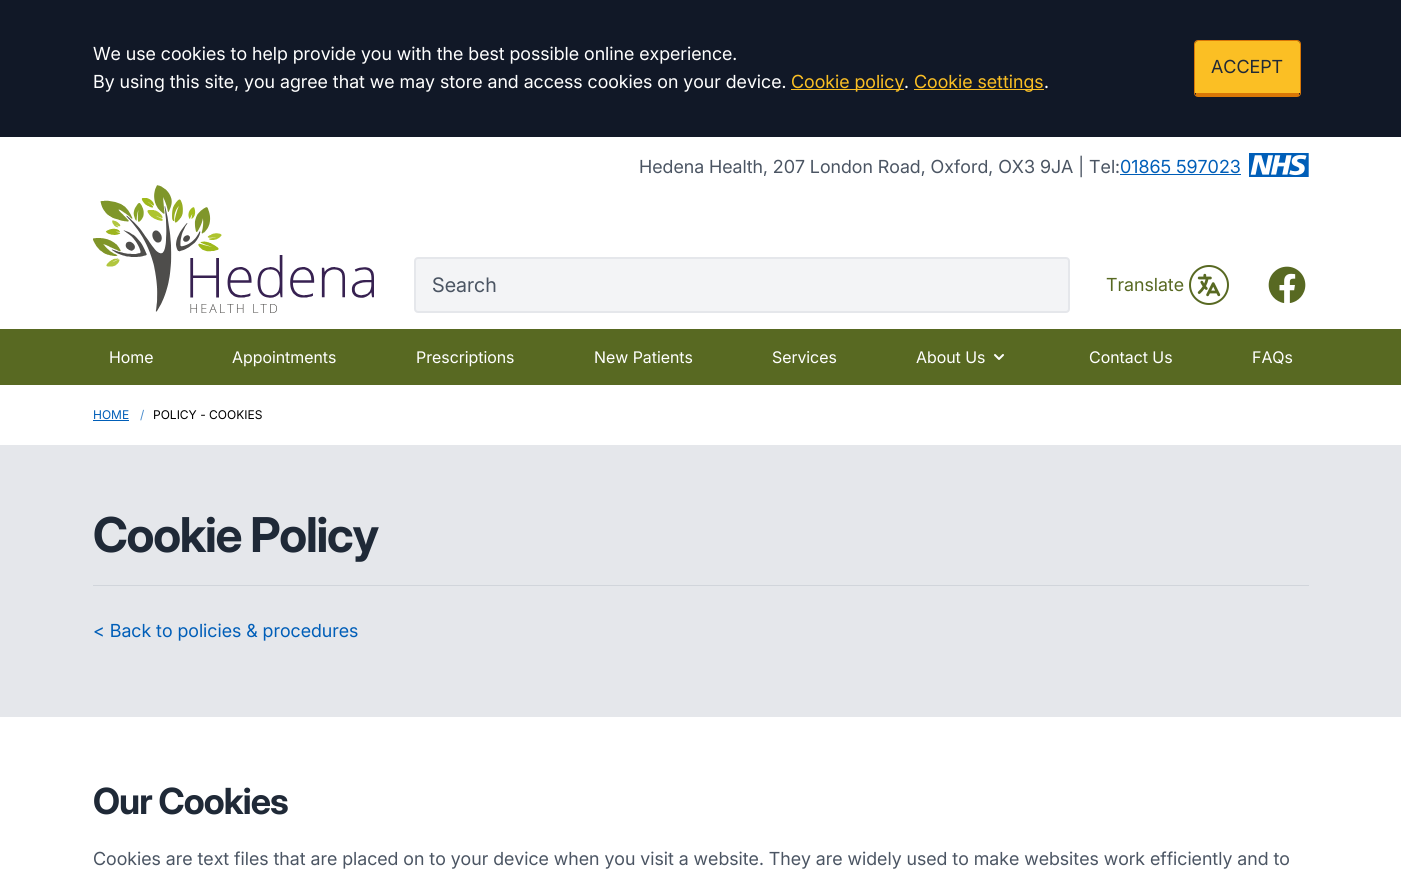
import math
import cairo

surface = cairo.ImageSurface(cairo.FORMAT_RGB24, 1401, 885)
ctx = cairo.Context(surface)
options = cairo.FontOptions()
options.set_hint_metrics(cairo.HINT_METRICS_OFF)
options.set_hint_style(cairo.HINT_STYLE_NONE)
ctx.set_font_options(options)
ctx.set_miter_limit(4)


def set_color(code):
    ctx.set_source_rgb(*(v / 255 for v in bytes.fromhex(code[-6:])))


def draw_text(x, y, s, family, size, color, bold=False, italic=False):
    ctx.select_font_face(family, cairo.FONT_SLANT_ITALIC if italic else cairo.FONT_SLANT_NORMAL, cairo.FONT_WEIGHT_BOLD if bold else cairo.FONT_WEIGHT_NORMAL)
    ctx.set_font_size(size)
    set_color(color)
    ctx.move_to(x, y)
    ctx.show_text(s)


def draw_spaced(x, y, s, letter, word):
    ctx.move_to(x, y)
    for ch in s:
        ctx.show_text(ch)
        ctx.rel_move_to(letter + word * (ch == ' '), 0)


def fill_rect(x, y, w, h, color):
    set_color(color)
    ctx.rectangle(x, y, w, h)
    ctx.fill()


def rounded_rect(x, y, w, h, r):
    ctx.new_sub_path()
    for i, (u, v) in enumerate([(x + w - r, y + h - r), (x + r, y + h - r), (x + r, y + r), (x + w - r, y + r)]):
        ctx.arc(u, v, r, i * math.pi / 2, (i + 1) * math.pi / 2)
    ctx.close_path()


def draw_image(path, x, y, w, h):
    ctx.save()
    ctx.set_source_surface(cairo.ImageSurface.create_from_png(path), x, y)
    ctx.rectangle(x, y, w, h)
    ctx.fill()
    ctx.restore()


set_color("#111827")
ctx.paint()
draw_text(93, 60, "We use cookies to help provide you with the best possible online experience.", "Inter", 18, "#ffffff")
draw_text(93, 88, "By using this site, you agree that we may store and access cookies on your device.", "Inter", 18, "#ffffff")
fill_rect(791, 89, 113, 1, "#fbbf24")
draw_text(791, 88, "Cookie policy", "Inter", 18, "#fbbf24")
draw_text(904, 88, ".", "Inter", 18, "#ffffff")
fill_rect(914, 89, 130, 1, "#fbbf24")
draw_text(914, 88, "Cookie settings", "Inter", 18, "#fbbf24")
draw_text(1044, 88, ".", "Inter", 18, "#ffffff")
set_color("#fbbf24")
ctx.new_path()
ctx.move_to(1198, 41)
ctx.line_to(1297, 41)
ctx.curve_to(1299, 41, 1300, 42, 1300, 44)
ctx.line_to(1300, 93)
ctx.line_to(1195, 93)
ctx.line_to(1195, 44)
ctx.curve_to(1195, 42, 1196, 41, 1198, 41)
ctx.close_path()
ctx.fill()
rounded_rect(1194.5, 40.5, 106, 56, 3.5)
set_color("#d97706")
ctx.set_line_width(1)
ctx.stroke()
fill_rect(1196, 93, 103, 3, "#d97706")
draw_text(1211, 73, "ACCEPT", "Inter", 18, "#1f2937")
fill_rect(0, 137, 1401, 192, "#ffffff")
draw_text(639, 173, "Hedena Health, 207 London Road, Oxford, OX3 9JA | Tel:", "Inter", 18, "#4b5563")
draw_text(1120, 173, "01865 597023", "Inter", 18, "#005eb8")
fill_rect(1120, 174, 121, 1, "#005eb8")
draw_image("assets/img1.png", 1249, 153, 60, 24)
draw_image("assets/img2.png", 93, 185, 281, 128)
set_color("#f3f4f6")
rounded_rect(415, 258, 654, 54, 3)
ctx.fill_preserve()
set_color("#e5e7eb")
ctx.set_line_width(2)
ctx.stroke()
draw_text(432, 292, "Search", "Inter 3", 20, "#4b5563")
draw_text(1106, 291, "Translate", "Inter", 18, "#586922")
ctx.new_path()
ctx.arc(1209, 285, 19, 0, 2 * math.pi)
ctx.stroke()
draw_image("assets/img3.png", 1197, 273, 24, 24)
draw_image("assets/img4.png", 1268, 266, 38, 37)
fill_rect(0, 329, 1401, 56, "#586922")
draw_text(109, 363, "Home", "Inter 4", 16, "#ffffff")
draw_text(232, 363, "Appointments", "Inter 4", 16, "#ffffff")
draw_text(416, 363, "Prescriptions", "Inter 4", 16, "#ffffff")
draw_text(594, 363, "New Patients", "Inter 4", 16, "#ffffff")
draw_text(772, 363, "Services", "Inter 4", 16, "#ffffff")
draw_text(916, 363, "About Us", "Inter 4", 16, "#ffffff")
draw_image("assets/img5.png", 994, 354, 10, 6)
draw_text(1089, 363, "Contact Us", "Inter 4", 16, "#ffffff")
draw_text(1252, 363, "FAQs", "Inter 4", 16, "#ffffff")
fill_rect(0, 385, 1401, 60, "#ffffff")
draw_text(93, 419, "HOME", "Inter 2", 12, "#005eb8")
fill_rect(93, 420, 36, 1, "#005eb8")
draw_text(140, 419, "/", "Inter 2", 12, "#4d8ecd")
draw_text(153, 419, "POLICY - COOKIES", "Inter 2", 12, "#000000")
fill_rect(0, 445, 1401, 272, "#e5e7eb")
ctx.select_font_face("Inter", cairo.FONT_SLANT_NORMAL, cairo.FONT_WEIGHT_BOLD)
ctx.set_font_size(48)
set_color("#1f2937")
draw_spaced(93, 552, "Cookie Policy", -1.25, 0)
fill_rect(93, 585, 1216, 1, "#d1d5db")
draw_text(93, 637, "< Back to policies & procedures", "Inter", 18, "#005eb8")
fill_rect(0, 717, 1401, 168, "#ffffff")
ctx.select_font_face("Inter", cairo.FONT_SLANT_NORMAL, cairo.FONT_WEIGHT_BOLD)
ctx.set_font_size(36)
set_color("#1f2937")
draw_spaced(93, 814, "Our Cookies", -0.9, 0)
draw_text(93, 865, "Cookies are text files that are placed on to your device when you visit a website. They are widely used to make websites work efficiently and to", "Inter", 18, "#4b5563")
surface.write_to_png("output.png")
